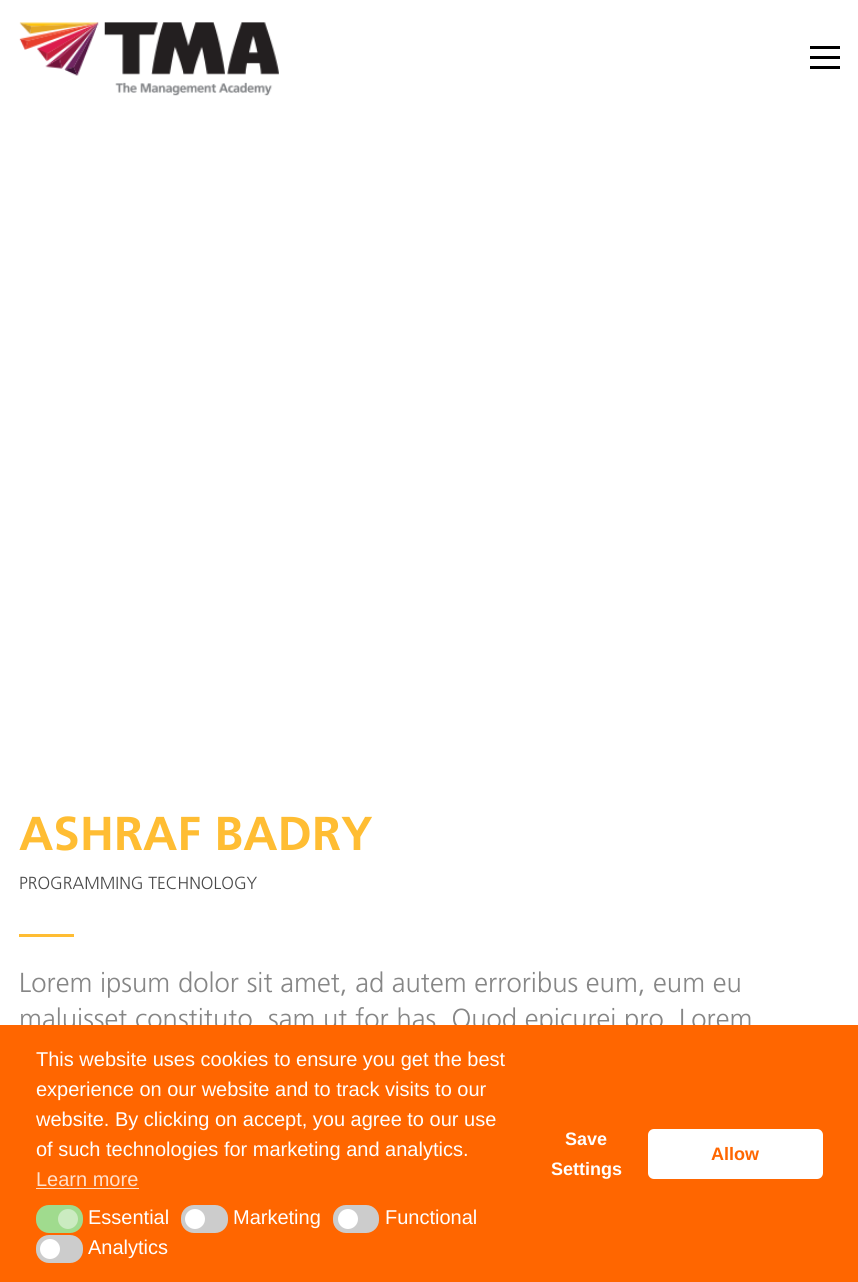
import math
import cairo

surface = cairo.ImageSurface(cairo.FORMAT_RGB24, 858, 1282)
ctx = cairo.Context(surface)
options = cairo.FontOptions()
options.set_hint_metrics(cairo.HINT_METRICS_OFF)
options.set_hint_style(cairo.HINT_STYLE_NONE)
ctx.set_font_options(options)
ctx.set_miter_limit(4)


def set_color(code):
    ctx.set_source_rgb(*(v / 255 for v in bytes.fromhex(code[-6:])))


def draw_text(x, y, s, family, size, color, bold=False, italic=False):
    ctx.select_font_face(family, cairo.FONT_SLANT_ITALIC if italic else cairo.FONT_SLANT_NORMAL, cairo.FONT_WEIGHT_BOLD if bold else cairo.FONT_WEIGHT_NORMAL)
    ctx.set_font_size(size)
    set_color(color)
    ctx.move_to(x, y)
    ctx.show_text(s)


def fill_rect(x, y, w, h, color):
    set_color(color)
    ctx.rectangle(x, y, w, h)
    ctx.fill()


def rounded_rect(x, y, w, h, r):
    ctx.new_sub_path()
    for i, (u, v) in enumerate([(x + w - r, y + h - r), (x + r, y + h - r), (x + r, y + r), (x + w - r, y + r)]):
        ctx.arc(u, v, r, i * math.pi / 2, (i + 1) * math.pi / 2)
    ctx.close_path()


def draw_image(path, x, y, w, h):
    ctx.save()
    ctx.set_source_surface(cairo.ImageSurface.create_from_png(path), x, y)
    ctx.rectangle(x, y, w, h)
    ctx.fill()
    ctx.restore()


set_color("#ffffff")
ctx.paint()
draw_image("assets/img1.png", 19, 22, 260, 74)
fill_rect(810, 46, 30, 3, "#000000")
fill_rect(810, 56, 30, 3, "#000000")
fill_rect(810, 66, 30, 3, "#000000")
draw_text(19, 850, "ASHRAF BADRY", "Frutiger", 47.5, "#ffbd33", bold=True)
draw_text(19, 889, "PROGRAMMING TECHNOLOGY", "Frutiger Light", 17.5, "#494949")
fill_rect(19, 934, 55, 3, "#ffbd33")
draw_text(19, 992, "Lorem ipsum dolor sit amet, ad autem erroribus eum, eum eu", "Frutiger Light", 27.5, "#868686")
draw_text(19, 1028, "maluisset constituto, sam ut for has. Quod epicurei pro. Lorem", "Frutiger Light", 27.5, "#868686")
fill_rect(0, 1025, 858, 257, "#ff6600")
draw_text(36, 1066, "This website uses cookies to ensure you get the best", "Liberation Sans", 20, "#ffffff")
draw_text(36, 1096, "experience on our website and to track visits to our", "Liberation Sans", 20, "#ffffff")
draw_text(36, 1126, "website. By clicking on accept, you agree to our use", "Liberation Sans", 20, "#ffffff")
draw_text(36, 1156, "of such technologies for marketing and analytics.", "Liberation Sans", 20, "#ffffff")
draw_text(36, 1186, "Learn more", "Liberation Sans", 20, "#ffe0cc")
fill_rect(36, 1188, 103, 1, "#ffe0cc")
set_color("#a0db8e")
rounded_rect(36, 1205, 47, 28, 13)
ctx.fill()
set_color("#cbebc1")
ctx.arc(68, 1219, 10, 0, 2 * math.pi)
ctx.fill()
draw_text(88, 1224, "Essential", "Liberation Sans", 20, "#ffffff")
set_color("#cccccc")
rounded_rect(181, 1205, 47, 28, 13)
ctx.fill()
set_color("#ffffff")
ctx.arc(195, 1219, 10, 0, 2 * math.pi)
ctx.fill()
draw_text(233, 1224, "Marketing", "Liberation Sans", 20, "#ffffff")
set_color("#cccccc")
rounded_rect(333, 1205, 46, 28, 13)
ctx.fill()
set_color("#ffffff")
ctx.arc(348, 1219, 10, 0, 2 * math.pi)
ctx.fill()
draw_text(385, 1224, "Functional", "Liberation Sans", 20, "#ffffff")
set_color("#cccccc")
rounded_rect(36, 1235, 47, 28, 13)
ctx.fill()
set_color("#ffffff")
ctx.arc(50, 1249, 10, 0, 2 * math.pi)
ctx.fill()
draw_text(88, 1254, "Analytics", "Liberation Sans", 20, "#ffffff")
draw_text(565, 1145, "Save", "Liberation Sans", 18, "#ffffff", bold=True)
draw_text(551, 1175, "Settings", "Liberation Sans", 18, "#ffffff", bold=True)
rounded_rect(648, 1129, 175, 50, 6)
ctx.fill()
draw_text(711, 1160, "Allow", "Liberation Sans", 18, "#ff6600", bold=True)
surface.write_to_png("output.png")
